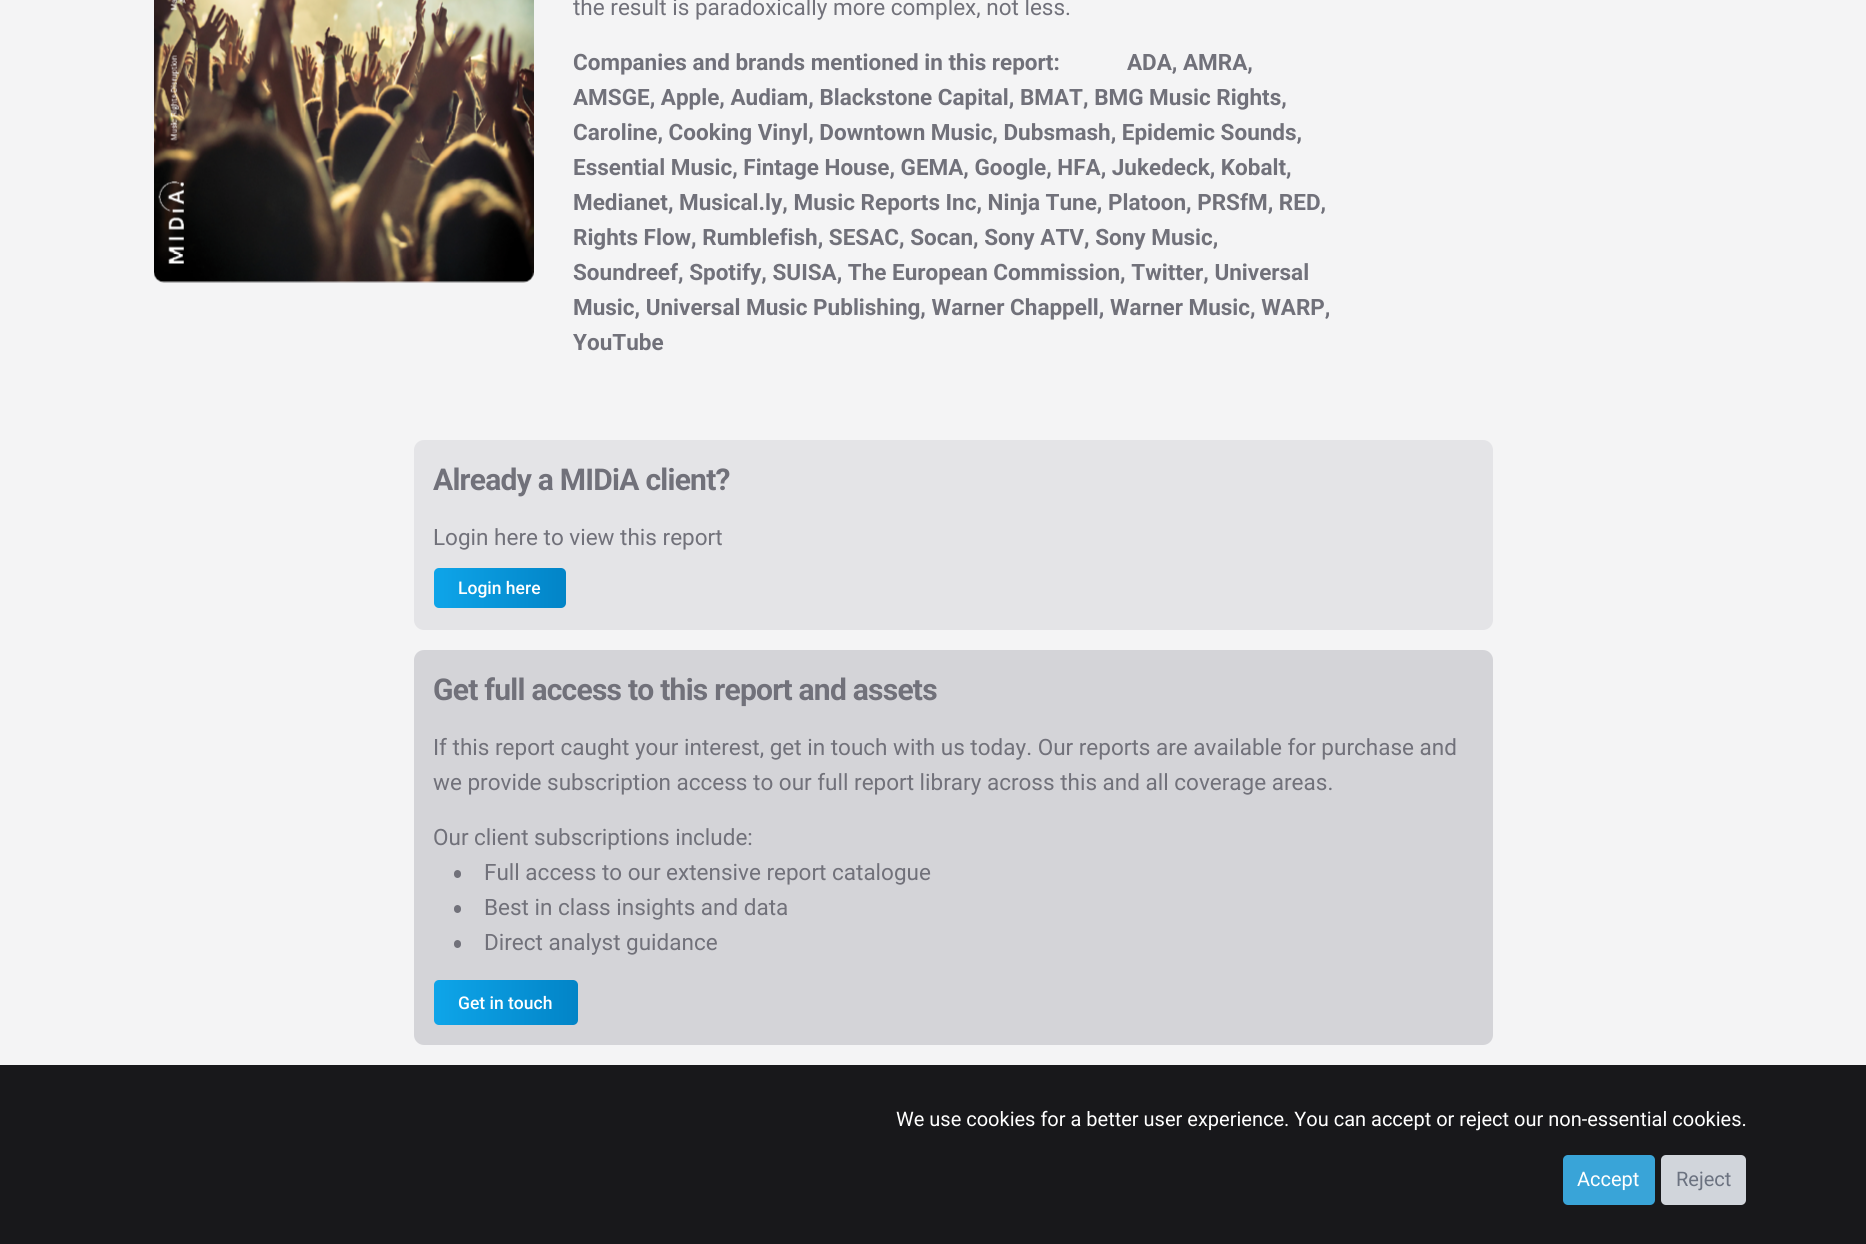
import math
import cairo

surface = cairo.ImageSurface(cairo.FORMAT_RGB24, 1866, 1244)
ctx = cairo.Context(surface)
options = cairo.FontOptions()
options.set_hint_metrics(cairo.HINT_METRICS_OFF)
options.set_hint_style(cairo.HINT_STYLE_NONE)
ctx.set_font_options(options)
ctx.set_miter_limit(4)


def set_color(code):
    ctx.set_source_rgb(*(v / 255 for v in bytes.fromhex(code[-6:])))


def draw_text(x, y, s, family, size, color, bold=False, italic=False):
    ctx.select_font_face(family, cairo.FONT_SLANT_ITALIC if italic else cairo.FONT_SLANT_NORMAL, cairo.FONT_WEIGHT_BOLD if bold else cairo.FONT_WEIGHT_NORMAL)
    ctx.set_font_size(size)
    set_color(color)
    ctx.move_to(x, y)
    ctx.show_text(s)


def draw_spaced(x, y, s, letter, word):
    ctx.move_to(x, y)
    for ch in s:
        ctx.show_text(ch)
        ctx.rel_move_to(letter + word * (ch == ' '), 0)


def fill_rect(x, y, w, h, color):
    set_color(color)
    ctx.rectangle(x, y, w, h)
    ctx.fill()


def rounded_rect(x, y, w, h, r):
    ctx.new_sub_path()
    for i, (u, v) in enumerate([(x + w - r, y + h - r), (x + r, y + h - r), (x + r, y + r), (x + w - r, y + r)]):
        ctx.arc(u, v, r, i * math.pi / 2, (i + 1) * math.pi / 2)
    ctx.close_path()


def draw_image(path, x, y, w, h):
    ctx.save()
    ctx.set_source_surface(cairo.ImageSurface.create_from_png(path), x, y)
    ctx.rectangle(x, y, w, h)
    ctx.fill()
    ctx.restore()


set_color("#f4f4f5")
ctx.paint()
draw_image("assets/img1.png", 154, 0, 380, 283)
draw_text(573, 15, "the result is paradoxically more complex, not less.", "Roboto", 22.5, "#71717a")
draw_text(573, 70, "Companies and brands mentioned in this report:", "Roboto", 22.5, "#71717a", bold=True)
draw_text(1127, 70, "ADA, AMRA,", "Roboto", 22.5, "#71717a", bold=True)
draw_text(573, 105, "AMSGE, Apple, Audiam, Blackstone Capital, BMAT, BMG Music Rights,", "Roboto", 22.5, "#71717a", bold=True)
draw_text(573, 140, "Caroline, Cooking Vinyl, Downtown Music, Dubsmash, Epidemic Sounds,", "Roboto", 22.5, "#71717a", bold=True)
draw_text(573, 175, "Essential Music, Fintage House, GEMA, Google, HFA, Jukedeck, Kobalt,", "Roboto", 22.5, "#71717a", bold=True)
draw_text(573, 210, "Medianet, Musical.ly, Music Reports Inc, Ninja Tune, Platoon, PRSfM, RED,", "Roboto", 22.5, "#71717a", bold=True)
draw_text(573, 245, "Rights Flow, Rumblefish, SESAC, Socan, Sony ATV, Sony Music,", "Roboto", 22.5, "#71717a", bold=True)
draw_text(573, 280, "Soundreef, Spotify, SUISA, The European Commission, Twitter, Universal", "Roboto", 22.5, "#71717a", bold=True)
draw_text(573, 315, "Music, Universal Music Publishing, Warner Chappell, Warner Music, WARP,", "Roboto", 22.5, "#71717a", bold=True)
draw_text(573, 350, "YouTube", "Roboto", 22.5, "#71717a", bold=True)
set_color("#e4e4e7")
rounded_rect(414, 440, 1079, 190, 10)
ctx.fill()
ctx.set_font_size(30)
set_color("#71717a")
draw_spaced(433, 490, "Already a MIDiA client?", -0.75, 0)
draw_text(433, 545, "Login here to view this report", "Roboto", 22.5, "#71717a")
gradient = cairo.LinearGradient(434, 588, 566, 588)
gradient.add_color_stop_rgba(0, 0.055, 0.647, 0.914, 1)
gradient.add_color_stop_rgba(1, 0.008, 0.518, 0.78, 1)
ctx.set_source(gradient)
rounded_rect(434, 568, 132, 40, 5)
ctx.fill()
draw_text(458, 594, "Login here", "Roboto Medium", 17.5, "#ffffff")
set_color("#d4d4d8")
rounded_rect(414, 650, 1079, 395, 10)
ctx.fill()
ctx.select_font_face("Roboto", cairo.FONT_SLANT_NORMAL, cairo.FONT_WEIGHT_BOLD)
ctx.set_font_size(30)
set_color("#71717a")
draw_spaced(433, 700, "Get full access to this report and assets", -0.75, 0)
draw_text(433, 755, "If this report caught your interest, get in touch with us today. Our reports are available for purchase and", "Roboto", 22.5, "#71717a")
draw_text(433, 790, "we provide subscription access to our full report library across this and all coverage areas.", "Roboto", 22.5, "#71717a")
draw_text(433, 845, "Our client subscriptions include:", "Roboto", 22.5, "#71717a")
rounded_rect(454, 870, 7, 8, 3.5)
ctx.fill()
draw_text(484, 880, "Full access to our extensive report catalogue", "Roboto", 22.5, "#71717a")
rounded_rect(454, 905, 7, 8, 3.5)
ctx.fill()
draw_text(484, 915, "Best in class insights and data", "Roboto", 22.5, "#71717a")
rounded_rect(454, 940, 7, 8, 3.5)
ctx.fill()
draw_text(484, 950, "Direct analyst guidance", "Roboto", 22.5, "#71717a")
gradient = cairo.LinearGradient(434, 1003, 578, 1003)
gradient.add_color_stop_rgba(0, 0.055, 0.647, 0.914, 1)
gradient.add_color_stop_rgba(1, 0.008, 0.518, 0.78, 1)
ctx.set_source(gradient)
rounded_rect(434, 980, 144, 45, 5)
ctx.fill()
draw_text(458, 1009, "Get in touch", "Roboto Medium", 17.5, "#ffffff")
fill_rect(0, 1065, 1866, 179, "#18181b")
draw_text(896, 1126, "We use cookies for a better user experience. You can accept or reject our non-essential cookies.", "Roboto", 20, "#ffffff")
set_color("#39a4d8")
rounded_rect(1563, 1155, 92, 50, 5)
ctx.fill()
draw_text(1577, 1186, "Accept", "Roboto", 20, "#ffffff")
set_color("#d1d5db")
rounded_rect(1661, 1155, 85, 50, 5)
ctx.fill()
draw_text(1676, 1186, "Reject", "Roboto", 20, "#6b7280")
surface.write_to_png("output.png")
